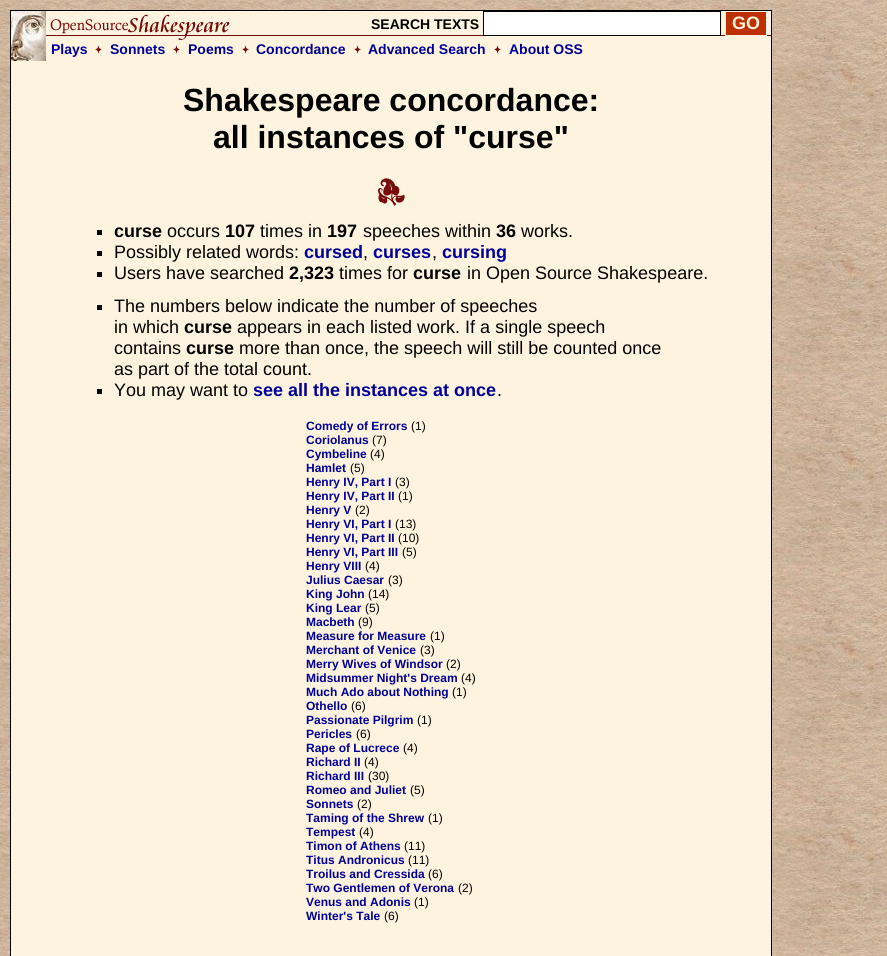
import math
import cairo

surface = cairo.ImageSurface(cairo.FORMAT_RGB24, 887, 956)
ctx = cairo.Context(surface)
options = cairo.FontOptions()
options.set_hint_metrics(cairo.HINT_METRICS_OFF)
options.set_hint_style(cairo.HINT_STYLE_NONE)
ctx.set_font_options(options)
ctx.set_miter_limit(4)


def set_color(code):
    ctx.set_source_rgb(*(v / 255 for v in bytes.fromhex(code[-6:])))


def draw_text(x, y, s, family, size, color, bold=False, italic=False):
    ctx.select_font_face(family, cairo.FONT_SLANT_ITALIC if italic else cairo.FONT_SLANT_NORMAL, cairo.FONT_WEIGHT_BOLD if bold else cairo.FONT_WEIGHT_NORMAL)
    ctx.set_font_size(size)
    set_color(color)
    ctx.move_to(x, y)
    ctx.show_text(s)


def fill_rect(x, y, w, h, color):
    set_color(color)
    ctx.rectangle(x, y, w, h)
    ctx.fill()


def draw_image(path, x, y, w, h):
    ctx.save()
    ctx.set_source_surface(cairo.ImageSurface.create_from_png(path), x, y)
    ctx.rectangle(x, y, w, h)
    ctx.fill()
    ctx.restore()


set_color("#ffffff")
ctx.paint()
draw_image("assets/img1.png", 0, 0, 887, 956)
fill_rect(11, 61, 760, 895, "#fef3de")
ctx.rectangle(10.5, 10.5, 761, 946)
set_color("#000000")
ctx.set_line_width(1)
ctx.stroke()
draw_image("assets/img2.png", 11, 11, 760, 50)
draw_text(371, 29, "SEARCH TEXTS", "Liberation Sans", 14, "#000000", bold=True)
set_color("#ffffff")
ctx.rectangle(483.5, 11.5, 237, 24)
ctx.fill_preserve()
set_color("#000000")
ctx.stroke()
set_color("#bf3000")
ctx.rectangle(725.5, 11.5, 41, 24)
ctx.fill_preserve()
set_color("#fef3de")
ctx.stroke()
draw_text(732, 29, "GO", "Liberation Sans", 18, "#fef3de", bold=True)
draw_text(51, 54, "Plays", "Liberation Sans", 14, "#000099", bold=True)
draw_image("assets/img3.png", 95, 45, 7, 9)
draw_text(110, 54, "Sonnets", "Liberation Sans", 14, "#000099", bold=True)
draw_image("assets/img3.png", 173, 45, 7, 9)
draw_text(188, 54, "Poems", "Liberation Sans", 14, "#000099", bold=True)
draw_image("assets/img3.png", 242, 45, 7, 9)
draw_text(256, 54, "Concordance", "Liberation Sans", 14, "#000099", bold=True)
draw_image("assets/img3.png", 354, 45, 7, 9)
draw_text(368, 54, "Advanced Search", "Liberation Sans", 14, "#000099", bold=True)
draw_image("assets/img3.png", 494, 45, 7, 9)
draw_text(509, 54, "About OSS", "Liberation Sans", 14, "#000099", bold=True)
draw_text(183, 111, "Shakespeare concordance:", "Liberation Sans", 32, "#000000", bold=True)
draw_text(213, 148, "all instances of \"curse\"", "Liberation Sans", 32, "#000000", bold=True)
draw_image("assets/img4.png", 378, 178, 27, 28)
fill_rect(97, 230, 5, 5, "#000000")
draw_text(114, 237, "curse", "Liberation Sans", 18, "#000000", bold=True)
draw_text(167, 237, "occurs", "Liberation Sans", 18, "#000000")
draw_text(225, 237, "107", "Liberation Sans", 18, "#000000", bold=True)
draw_text(260, 237, "times in", "Liberation Sans", 18, "#000000")
draw_text(327, 237, "197", "Liberation Sans", 18, "#000000", bold=True)
draw_text(363, 237, "speeches within", "Liberation Sans", 18, "#000000")
draw_text(496, 237, "36", "Liberation Sans", 18, "#000000", bold=True)
draw_text(521, 237, "works.", "Liberation Sans", 18, "#000000")
fill_rect(97, 251, 5, 5, "#000000")
draw_text(114, 258, "Possibly related words:", "Liberation Sans", 18, "#000000")
draw_text(304, 258, "cursed", "Liberation Sans", 18, "#000099", bold=True)
draw_text(373, 258, "curses", "Liberation Sans", 18, "#000099", bold=True)
draw_text(442, 258, "cursing", "Liberation Sans", 18, "#000099", bold=True)
draw_text(363, 258, ",", "Liberation Sans", 18, "#000000")
draw_text(432, 258, ",", "Liberation Sans", 18, "#000000")
fill_rect(97, 272, 5, 5, "#000000")
draw_text(114, 279, "Users have searched", "Liberation Sans", 18, "#000000")
draw_text(289, 279, "2,323", "Liberation Sans", 18, "#000000", bold=True)
draw_text(339, 279, "times for", "Liberation Sans", 18, "#000000")
draw_text(413, 279, "curse", "Liberation Sans", 18, "#000000", bold=True)
draw_text(467, 279, "in Open Source Shakespeare.", "Liberation Sans", 18, "#000000")
fill_rect(97, 305, 5, 5, "#000000")
draw_text(114, 312, "The numbers below indicate the number of speeches", "Liberation Sans", 18, "#000000")
draw_text(114, 333, "in which", "Liberation Sans", 18, "#000000")
draw_text(184, 333, "curse", "Liberation Sans", 18, "#000000", bold=True)
draw_text(237, 333, "appears in each listed work. If a single speech", "Liberation Sans", 18, "#000000")
draw_text(114, 354, "contains", "Liberation Sans", 18, "#000000")
draw_text(186, 354, "curse", "Liberation Sans", 18, "#000000", bold=True)
draw_text(239, 354, "more than once, the speech will still be counted once", "Liberation Sans", 18, "#000000")
draw_text(114, 375, "as part of the total count.", "Liberation Sans", 18, "#000000")
fill_rect(97, 389, 5, 5, "#000000")
draw_text(114, 396, "You may want to", "Liberation Sans", 18, "#000000")
draw_text(253, 396, "see all the instances at once", "Liberation Sans", 18, "#000099", bold=True)
draw_text(497, 396, ".", "Liberation Sans", 18, "#000000")
draw_text(306, 430, "Comedy of Errors", "Liberation Sans", 12, "#000099", bold=True)
draw_text(411, 430, "(1)", "Liberation Sans", 12, "#000000")
draw_text(306, 444, "Coriolanus", "Liberation Sans", 12, "#000099", bold=True)
draw_text(372, 444, "(7)", "Liberation Sans", 12, "#000000")
draw_text(306, 458, "Cymbeline", "Liberation Sans", 12, "#000099", bold=True)
draw_text(370, 458, "(4)", "Liberation Sans", 12, "#000000")
draw_text(306, 472, "Hamlet", "Liberation Sans", 12, "#000099", bold=True)
draw_text(350, 472, "(5)", "Liberation Sans", 12, "#000000")
draw_text(306, 486, "Henry IV, Part I", "Liberation Sans", 12, "#000099", bold=True)
draw_text(395, 486, "(3)", "Liberation Sans", 12, "#000000")
draw_text(306, 500, "Henry IV, Part II", "Liberation Sans", 12, "#000099", bold=True)
draw_text(398, 500, "(1)", "Liberation Sans", 12, "#000000")
draw_text(306, 514, "Henry V", "Liberation Sans", 12, "#000099", bold=True)
draw_text(355, 514, "(2)", "Liberation Sans", 12, "#000000")
draw_text(306, 528, "Henry VI, Part I", "Liberation Sans", 12, "#000099", bold=True)
draw_text(395, 528, "(13)", "Liberation Sans", 12, "#000000")
draw_text(306, 542, "Henry VI, Part II", "Liberation Sans", 12, "#000099", bold=True)
draw_text(398, 542, "(10)", "Liberation Sans", 12, "#000000")
draw_text(306, 556, "Henry VI, Part III", "Liberation Sans", 12, "#000099", bold=True)
draw_text(402, 556, "(5)", "Liberation Sans", 12, "#000000")
draw_text(306, 570, "Henry VIII", "Liberation Sans", 12, "#000099", bold=True)
draw_text(365, 570, "(4)", "Liberation Sans", 12, "#000000")
draw_text(306, 584, "Julius Caesar", "Liberation Sans", 12, "#000099", bold=True)
draw_text(388, 584, "(3)", "Liberation Sans", 12, "#000000")
draw_text(306, 598, "King John", "Liberation Sans", 12, "#000099", bold=True)
draw_text(368, 598, "(14)", "Liberation Sans", 12, "#000000")
draw_text(306, 612, "King Lear", "Liberation Sans", 12, "#000099", bold=True)
draw_text(365, 612, "(5)", "Liberation Sans", 12, "#000000")
draw_text(306, 626, "Macbeth", "Liberation Sans", 12, "#000099", bold=True)
draw_text(358, 626, "(9)", "Liberation Sans", 12, "#000000")
draw_text(306, 640, "Measure for Measure", "Liberation Sans", 12, "#000099", bold=True)
draw_text(430, 640, "(1)", "Liberation Sans", 12, "#000000")
draw_text(306, 654, "Merchant of Venice", "Liberation Sans", 12, "#000099", bold=True)
draw_text(420, 654, "(3)", "Liberation Sans", 12, "#000000")
draw_text(306, 668, "Merry Wives of Windsor", "Liberation Sans", 12, "#000099", bold=True)
draw_text(446, 668, "(2)", "Liberation Sans", 12, "#000000")
draw_text(306, 682, "Midsummer Night's Dream", "Liberation Sans", 12, "#000099", bold=True)
draw_text(461, 682, "(4)", "Liberation Sans", 12, "#000000")
draw_text(306, 696, "Much Ado about Nothing", "Liberation Sans", 12, "#000099", bold=True)
draw_text(452, 696, "(1)", "Liberation Sans", 12, "#000000")
draw_text(306, 710, "Othello", "Liberation Sans", 12, "#000099", bold=True)
draw_text(351, 710, "(6)", "Liberation Sans", 12, "#000000")
draw_text(306, 724, "Passionate Pilgrim", "Liberation Sans", 12, "#000099", bold=True)
draw_text(417, 724, "(1)", "Liberation Sans", 12, "#000000")
draw_text(306, 738, "Pericles", "Liberation Sans", 12, "#000099", bold=True)
draw_text(356, 738, "(6)", "Liberation Sans", 12, "#000000")
draw_text(306, 752, "Rape of Lucrece", "Liberation Sans", 12, "#000099", bold=True)
draw_text(403, 752, "(4)", "Liberation Sans", 12, "#000000")
draw_text(306, 766, "Richard II", "Liberation Sans", 12, "#000099", bold=True)
draw_text(364, 766, "(4)", "Liberation Sans", 12, "#000000")
draw_text(306, 780, "Richard III", "Liberation Sans", 12, "#000099", bold=True)
draw_text(368, 780, "(30)", "Liberation Sans", 12, "#000000")
draw_text(306, 794, "Romeo and Juliet", "Liberation Sans", 12, "#000099", bold=True)
draw_text(410, 794, "(5)", "Liberation Sans", 12, "#000000")
draw_text(306, 808, "Sonnets", "Liberation Sans", 12, "#000099", bold=True)
draw_text(357, 808, "(2)", "Liberation Sans", 12, "#000000")
draw_text(306, 822, "Taming of the Shrew", "Liberation Sans", 12, "#000099", bold=True)
draw_text(428, 822, "(1)", "Liberation Sans", 12, "#000000")
draw_text(306, 836, "Tempest", "Liberation Sans", 12, "#000099", bold=True)
draw_text(359, 836, "(4)", "Liberation Sans", 12, "#000000")
draw_text(306, 850, "Timon of Athens", "Liberation Sans", 12, "#000099", bold=True)
draw_text(404, 850, "(11)", "Liberation Sans", 12, "#000000")
draw_text(306, 864, "Titus Andronicus", "Liberation Sans", 12, "#000099", bold=True)
draw_text(408, 864, "(11)", "Liberation Sans", 12, "#000000")
draw_text(306, 878, "Troilus and Cressida", "Liberation Sans", 12, "#000099", bold=True)
draw_text(428, 878, "(6)", "Liberation Sans", 12, "#000000")
draw_text(306, 892, "Two Gentlemen of Verona", "Liberation Sans", 12, "#000099", bold=True)
draw_text(458, 892, "(2)", "Liberation Sans", 12, "#000000")
draw_text(306, 906, "Venus and Adonis", "Liberation Sans", 12, "#000099", bold=True)
draw_text(414, 906, "(1)", "Liberation Sans", 12, "#000000")
draw_text(306, 920, "Winter's Tale", "Liberation Sans", 12, "#000099", bold=True)
draw_text(384, 920, "(6)", "Liberation Sans", 12, "#000000")
surface.write_to_png("output.png")
